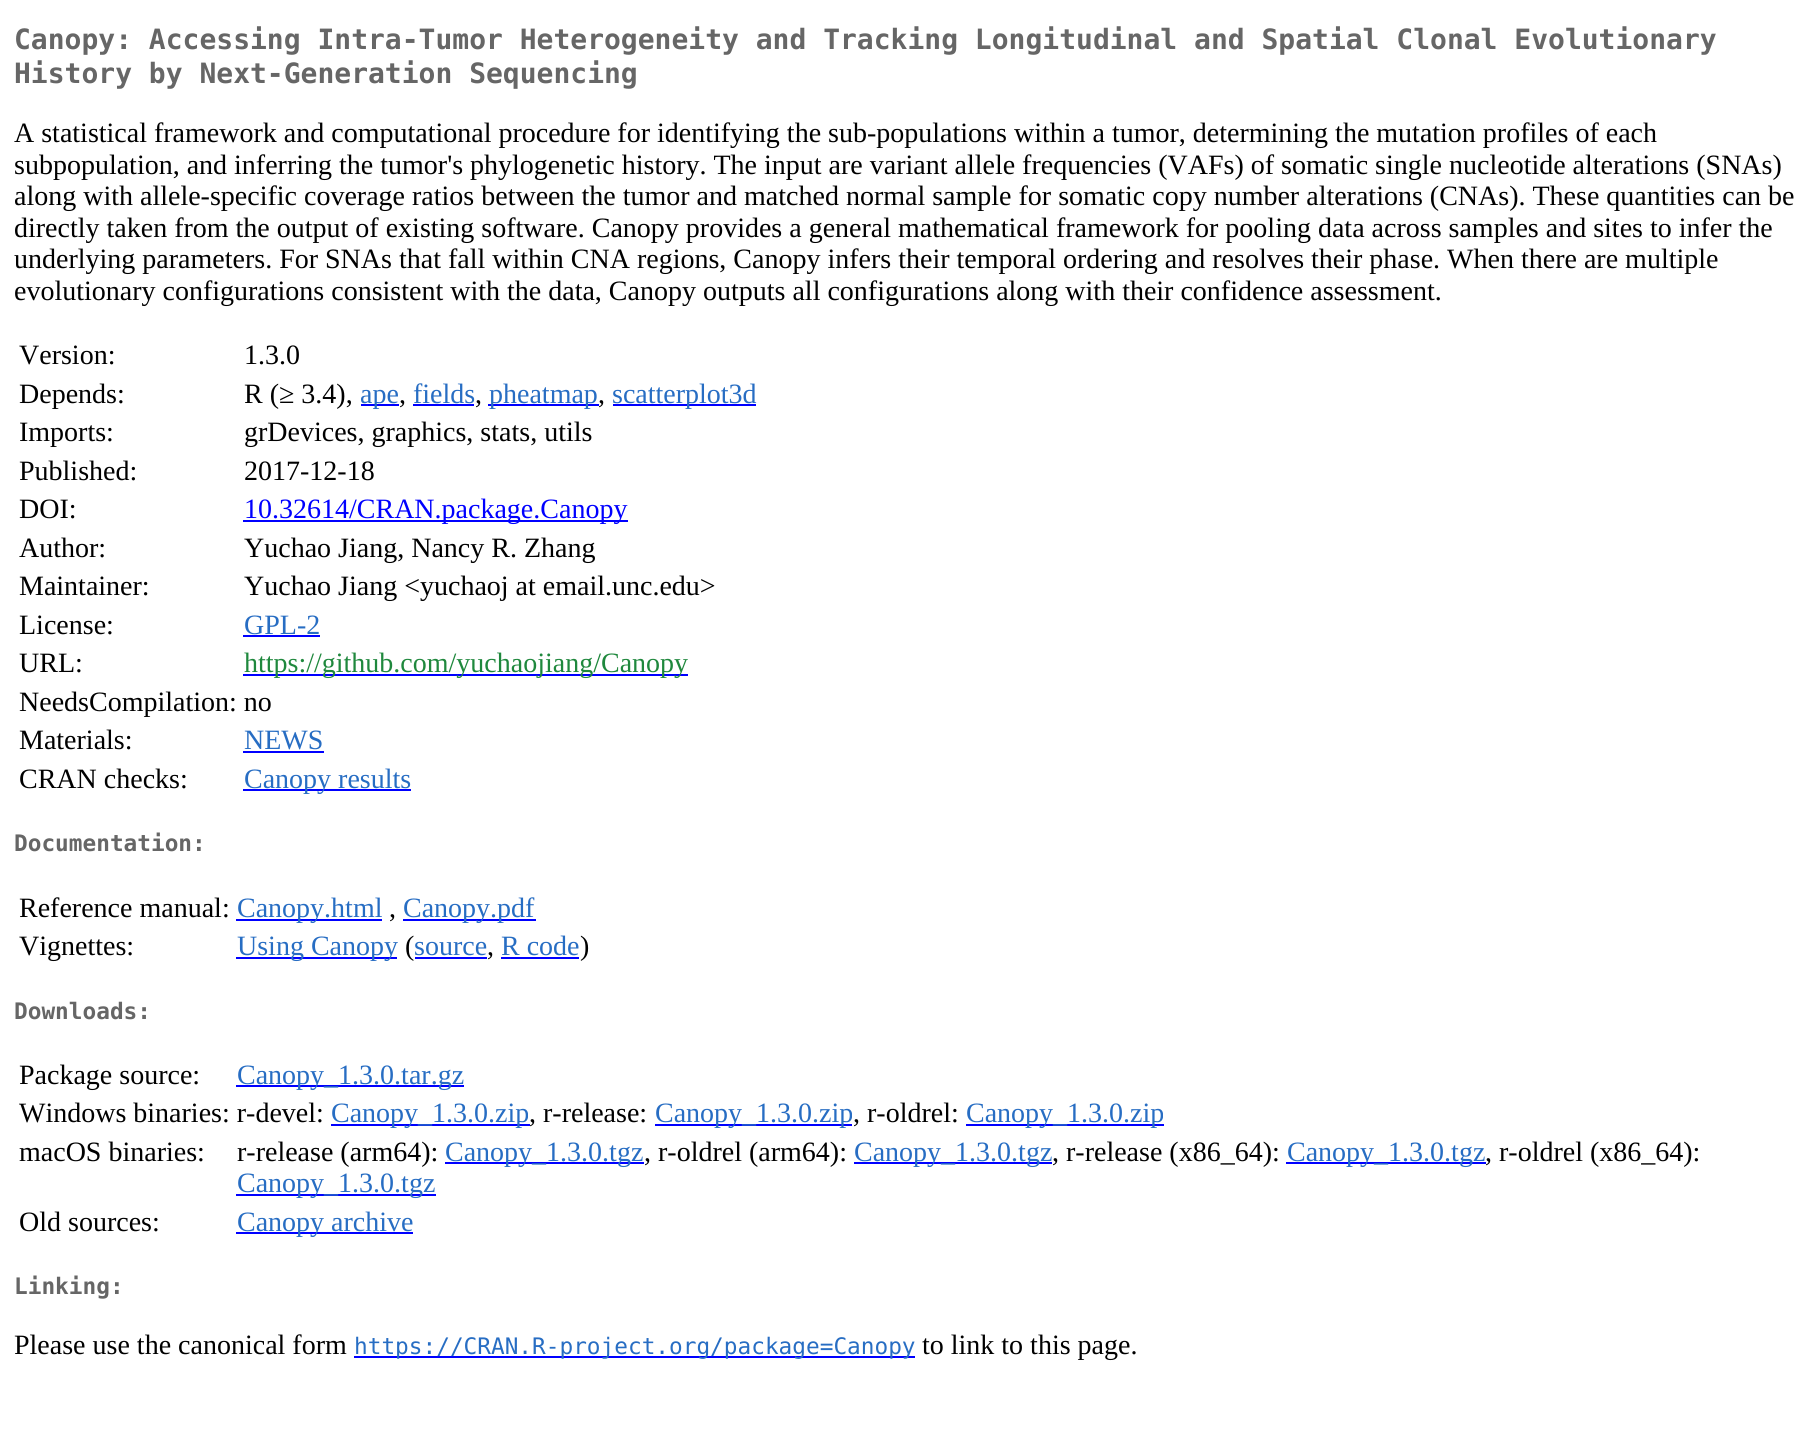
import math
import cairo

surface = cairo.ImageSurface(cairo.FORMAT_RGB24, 1817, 1448)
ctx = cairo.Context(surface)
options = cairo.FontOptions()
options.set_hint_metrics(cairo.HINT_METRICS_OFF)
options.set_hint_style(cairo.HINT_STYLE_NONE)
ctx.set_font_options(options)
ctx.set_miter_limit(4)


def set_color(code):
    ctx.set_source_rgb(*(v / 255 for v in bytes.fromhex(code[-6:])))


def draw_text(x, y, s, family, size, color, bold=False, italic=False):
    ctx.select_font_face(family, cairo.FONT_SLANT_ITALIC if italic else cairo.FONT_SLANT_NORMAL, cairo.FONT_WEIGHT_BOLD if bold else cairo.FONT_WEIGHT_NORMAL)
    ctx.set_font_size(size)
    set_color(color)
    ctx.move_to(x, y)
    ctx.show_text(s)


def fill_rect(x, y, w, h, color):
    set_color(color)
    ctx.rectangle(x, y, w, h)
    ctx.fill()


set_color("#ffffff")
ctx.paint()
draw_text(14, 49, "Canopy: Accessing Intra-Tumor Heterogeneity and Tracking Longitudinal and Spatial Clonal Evolutionary", "DejaVu Sans Mono", 28, "#666666", bold=True)
draw_text(14, 83, "History by Next-Generation Sequencing", "DejaVu Sans Mono", 28, "#666666", bold=True)
draw_text(14, 142, "A statistical framework and computational procedure for identifying the sub-populations within a tumor, determining the mutation profiles of each", "Liberation Serif", 28, "#000000")
draw_text(14, 174, "subpopulation, and inferring the tumor's phylogenetic history. The input are variant allele frequencies (VAFs) of somatic single nucleotide alterations (SNAs)", "Liberation Serif", 28, "#000000")
draw_text(14, 205, "along with allele-specific coverage ratios between the tumor and matched normal sample for somatic copy number alterations (CNAs). These quantities can be", "Liberation Serif", 28, "#000000")
draw_text(14, 237, "directly taken from the output of existing software. Canopy provides a general mathematical framework for pooling data across samples and sites to infer the", "Liberation Serif", 28, "#000000")
draw_text(14, 268, "underlying parameters. For SNAs that fall within CNA regions, Canopy infers their temporal ordering and resolves their phase. When there are multiple", "Liberation Serif", 28, "#000000")
draw_text(14, 300, "evolutionary configurations consistent with the data, Canopy outputs all configurations along with their confidence assessment.", "Liberation Serif", 28, "#000000")
draw_text(19, 364, "Version:", "Liberation Serif", 28, "#000000")
draw_text(244, 364, "1.3.0", "Liberation Serif", 28, "#000000")
draw_text(19, 403, "Depends:", "Liberation Serif", 28, "#000000")
draw_text(244, 403, "R (≥ 3.4),", "Liberation Serif", 28, "#000000")
fill_rect(361, 404, 38, 2, "#0000ff")
draw_text(360, 403, "ape", "Liberation Serif", 28, "#276dc3")
draw_text(399, 403, ",", "Liberation Serif", 28, "#000000")
draw_text(413, 403, "fields", "Liberation Serif", 28, "#276dc3")
fill_rect(413, 404, 61, 2, "#0000ff")
draw_text(475, 403, ",", "Liberation Serif", 28, "#000000")
fill_rect(488, 404, 111, 2, "#0000ff")
draw_text(489, 403, "pheatmap", "Liberation Serif", 28, "#276dc3")
draw_text(598, 403, ",", "Liberation Serif", 28, "#000000")
fill_rect(613, 404, 143, 2, "#0000ff")
draw_text(612, 403, "scatterplot3d", "Liberation Serif", 28, "#276dc3")
draw_text(19, 441, "Imports:", "Liberation Serif", 28, "#000000")
draw_text(244, 441, "grDevices, graphics, stats, utils", "Liberation Serif", 28, "#000000")
draw_text(19, 480, "Published:", "Liberation Serif", 28, "#000000")
draw_text(244, 480, "2017-12-18", "Liberation Serif", 28, "#000000")
draw_text(19, 518, "DOI:", "Liberation Serif", 28, "#000000")
fill_rect(243, 520, 385, 2, "#0000ff")
draw_text(244, 518, "10.32614/CRAN.package.Canopy", "Liberation Serif", 28, "#0000ff")
draw_text(19, 557, "Author:", "Liberation Serif", 28, "#000000")
draw_text(244, 557, "Yuchao Jiang, Nancy R. Zhang", "Liberation Serif", 28, "#000000")
draw_text(19, 595, "Maintainer:", "Liberation Serif", 28, "#000000")
draw_text(244, 595, "Yuchao Jiang <yuchaoj at email.unc.edu>", "Liberation Serif", 28, "#000000")
draw_text(19, 634, "License:", "Liberation Serif", 28, "#000000")
draw_text(244, 634, "GPL-2", "Liberation Serif", 28, "#276dc3")
fill_rect(243, 635, 77, 2, "#0000ff")
draw_text(19, 672, "URL:", "Liberation Serif", 28, "#000000")
fill_rect(243, 674, 445, 2, "#0000ff")
draw_text(244, 672, "https://github.com/yuchaojiang/Canopy", "Liberation Serif", 28, "#1f883d")
draw_text(19, 711, "NeedsCompilation: no", "Liberation Serif", 28, "#000000")
draw_text(19, 749, "Materials:", "Liberation Serif", 28, "#000000")
draw_text(244, 749, "NEWS", "Liberation Serif", 28, "#276dc3")
fill_rect(243, 751, 81, 2, "#0000ff")
draw_text(19, 788, "CRAN checks:", "Liberation Serif", 28, "#000000")
fill_rect(243, 789, 168, 2, "#0000ff")
draw_text(244, 788, "Canopy results", "Liberation Serif", 28, "#276dc3")
draw_text(14, 851, "Documentation:", "DejaVu Sans Mono", 22.75, "#666666", bold=True)
draw_text(19, 917, "Reference manual:", "Liberation Serif", 28, "#000000")
fill_rect(236, 919, 146, 2, "#0000ff")
draw_text(237, 917, "Canopy.html", "Liberation Serif", 28, "#276dc3")
draw_text(389, 917, ",", "Liberation Serif", 28, "#000000")
fill_rect(403, 919, 133, 2, "#0000ff")
draw_text(403, 917, "Canopy.pdf", "Liberation Serif", 28, "#276dc3")
draw_text(19, 955, "Vignettes:", "Liberation Serif", 28, "#000000")
fill_rect(236, 957, 161, 2, "#0000ff")
draw_text(237, 955, "Using Canopy", "Liberation Serif", 28, "#276dc3")
draw_text(405, 955, "(", "Liberation Serif", 28, "#000000")
draw_text(414, 955, "source", "Liberation Serif", 28, "#276dc3")
fill_rect(415, 957, 72, 2, "#0000ff")
draw_text(487, 955, ",", "Liberation Serif", 28, "#000000")
draw_text(501, 955, "R code", "Liberation Serif", 28, "#276dc3")
fill_rect(501, 957, 78, 2, "#0000ff")
draw_text(580, 955, ")", "Liberation Serif", 28, "#000000")
draw_text(14, 1019, "Downloads:", "DejaVu Sans Mono", 22.75, "#666666", bold=True)
draw_text(19, 1084, "Package source:", "Liberation Serif", 28, "#000000")
fill_rect(236, 1085, 228, 2, "#0000ff")
draw_text(237, 1084, "Canopy_1.3.0.tar.gz", "Liberation Serif", 28, "#276dc3")
draw_text(19, 1122, "Windows binaries: r-devel:", "Liberation Serif", 28, "#000000")
fill_rect(331, 1124, 199, 2, "#0000ff")
draw_text(331, 1122, "Canopy_1.3.0.zip", "Liberation Serif", 28, "#276dc3")
draw_text(529, 1122, ", r-release:", "Liberation Serif", 28, "#000000")
fill_rect(655, 1124, 197, 2, "#0000ff")
draw_text(655, 1122, "Canopy_1.3.0.zip", "Liberation Serif", 28, "#276dc3")
draw_text(853, 1122, ", r-oldrel:", "Liberation Serif", 28, "#000000")
fill_rect(966, 1124, 198, 2, "#0000ff")
draw_text(966, 1122, "Canopy_1.3.0.zip", "Liberation Serif", 28, "#276dc3")
draw_text(19, 1161, "macOS binaries:", "Liberation Serif", 28, "#000000")
draw_text(237, 1161, "r-release (arm64):", "Liberation Serif", 28, "#000000")
fill_rect(445, 1162, 199, 2, "#0000ff")
draw_text(445, 1161, "Canopy_1.3.0.tgz", "Liberation Serif", 28, "#276dc3")
draw_text(644, 1161, ", r-oldrel (arm64):", "Liberation Serif", 28, "#000000")
fill_rect(854, 1162, 198, 2, "#0000ff")
draw_text(854, 1161, "Canopy_1.3.0.tgz", "Liberation Serif", 28, "#276dc3")
draw_text(1052, 1161, ", r-release (x86_64):", "Liberation Serif", 28, "#000000")
fill_rect(1286, 1162, 200, 2, "#0000ff")
draw_text(1287, 1161, "Canopy_1.3.0.tgz", "Liberation Serif", 28, "#276dc3")
draw_text(1485, 1161, ", r-oldrel (x86_64):", "Liberation Serif", 28, "#000000")
fill_rect(236, 1194, 200, 2, "#0000ff")
draw_text(237, 1192, "Canopy_1.3.0.tgz", "Liberation Serif", 28, "#276dc3")
draw_text(19, 1231, "Old sources:", "Liberation Serif", 28, "#000000")
fill_rect(236, 1232, 177, 2, "#0000ff")
draw_text(237, 1231, "Canopy archive", "Liberation Serif", 28, "#276dc3")
draw_text(14, 1294, "Linking:", "DejaVu Sans Mono", 22.75, "#666666", bold=True)
draw_text(14, 1354, "Please use the canonical form", "Liberation Serif", 28, "#000000")
fill_rect(354, 1356, 561, 2, "#0000ff")
draw_text(354, 1354, "https://CRAN.R-project.org/package=Canopy", "DejaVu Sans Mono", 22.75, "#276dc3")
draw_text(922, 1354, "to link to this page.", "Liberation Serif", 28, "#000000")
surface.write_to_png("output.png")
